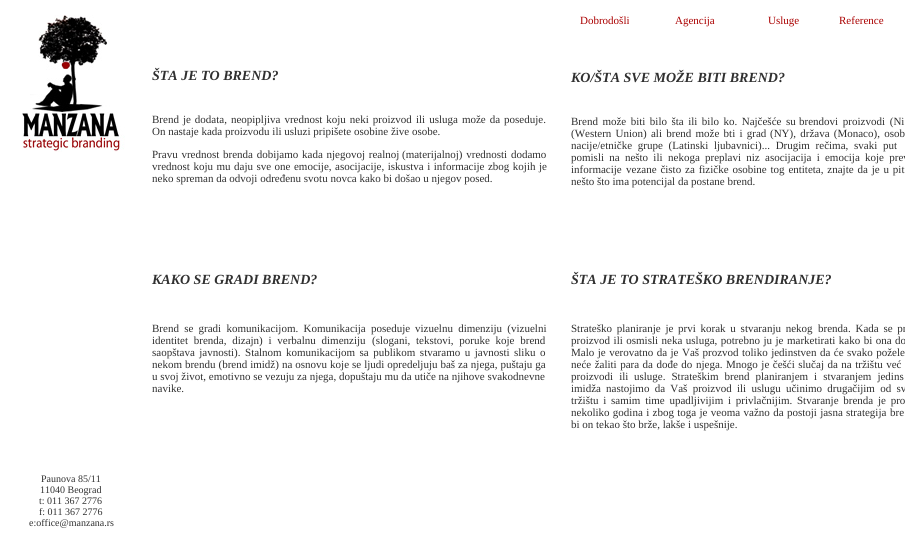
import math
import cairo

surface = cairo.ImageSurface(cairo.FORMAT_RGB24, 905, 559)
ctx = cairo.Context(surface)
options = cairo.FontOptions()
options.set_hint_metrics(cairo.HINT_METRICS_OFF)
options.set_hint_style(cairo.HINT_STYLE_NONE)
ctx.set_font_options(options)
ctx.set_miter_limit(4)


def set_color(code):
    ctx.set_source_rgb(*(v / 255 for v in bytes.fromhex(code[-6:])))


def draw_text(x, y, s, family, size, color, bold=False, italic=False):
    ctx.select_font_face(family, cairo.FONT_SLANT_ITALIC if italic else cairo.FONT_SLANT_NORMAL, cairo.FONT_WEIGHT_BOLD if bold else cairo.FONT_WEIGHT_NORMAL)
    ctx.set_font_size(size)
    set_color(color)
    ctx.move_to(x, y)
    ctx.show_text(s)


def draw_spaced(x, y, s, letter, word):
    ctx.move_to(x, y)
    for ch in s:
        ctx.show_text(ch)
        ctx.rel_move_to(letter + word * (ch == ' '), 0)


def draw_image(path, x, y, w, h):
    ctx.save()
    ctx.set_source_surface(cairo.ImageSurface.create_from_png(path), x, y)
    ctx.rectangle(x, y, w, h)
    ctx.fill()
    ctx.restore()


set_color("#ffffff")
ctx.paint()
draw_text(580, 24, "Dobrodošli", "Liberation Serif", 11, "#aa0000")
draw_text(675, 24, "Agencija", "Liberation Serif", 11, "#aa0000")
draw_text(768, 24, "Usluge", "Liberation Serif", 11, "#aa0000")
draw_text(839, 24, "Reference", "Liberation Serif", 11, "#aa0000")
draw_image("assets/img1.png", 22, 15, 103, 137)
draw_text(41, 482, "Paunova 85/11", "Liberation Serif", 10, "#303030")
draw_text(40, 493, "11040 Beograd", "Liberation Serif", 10, "#303030")
draw_text(39, 504, "t: 011 367 2776", "Liberation Serif", 10, "#303030")
draw_text(39, 515, "f: 011 367 2776", "Liberation Serif", 10, "#303030")
draw_text(29, 526, "e:office@manzana.rs", "Liberation Serif", 10, "#303030")
draw_text(152, 80, "ŠTA JE TO BREND?", "Liberation Serif", 14, "#303030", bold=True, italic=True)
ctx.select_font_face("Liberation Serif")
ctx.set_font_size(11)
draw_spaced(152, 123, "Brend je dodata, neopipljiva vrednost koju neki proizvod", 0, 1.25)
draw_spaced(416, 123, "ili usluga može da poseduje.", 0, 1.25)
draw_text(152, 135, "On nastaje kada proizvodu ili usluzi pripišete osobine žive osobe.", "Liberation Serif", 11, "#303030")
draw_spaced(152, 158, "Pravu vrednost brenda dobijamo kada njegovoj realnoj", 0, 1)
draw_spaced(402, 158, "(materijalnoj) vrednosti dodamo", 0, 1)
draw_spaced(152, 170, "vrednost koju mu daju sve one emocije,", 0, 0.75)
draw_spaced(335, 170, "asocijacije, iskustva i informacije zbog kojih je", 0, 0.75)
draw_text(152, 182, "neko spreman da odvoji određenu svotu novca kako bi došao u njegov posed.", "Liberation Serif", 11, "#303030")
draw_text(152, 284, "KAKO SE GRADI BREND?", "Liberation Serif", 14, "#303030", bold=True, italic=True)
ctx.select_font_face("Liberation Serif")
ctx.set_font_size(11)
draw_spaced(152, 332, "Brend se gradi komunikacijom. Komunikacija poseduje", 0, 2.5)
draw_spaced(415, 332, "vizuelnu dimenziju (vizuelni", 0, 2.5)
draw_spaced(152, 344, "identitet brenda, dizajn) i verbalnu dimenziju", 0, 3)
draw_spaced(372, 344, "(slogani, tekstovi, poruke koje brend", 0, 3)
draw_spaced(152, 356, "saopštava javnosti). Stalnom", 0, 1.75)
draw_spaced(286, 356, "komunikacijom sa publikom stvaramo u javnosti sliku o", 0, 1.75)
draw_spaced(152, 368, "nekom brendu (brend imidž) na osnovu koje se ljudi opredeljuju baš za njega, puštaju ga", 0, 0.25)
draw_text(152, 380, "u svoj život, emotivno se vezuju za njega, dopuštaju mu da utiče na njihove svakodnevne", "Liberation Serif", 11, "#303030")
draw_text(152, 392, "navike.", "Liberation Serif", 11, "#303030")
draw_text(571, 82, "KO/ŠTA SVE MOŽE BITI BREND?", "Liberation Serif", 14, "#303030", bold=True, italic=True)
ctx.select_font_face("Liberation Serif")
ctx.set_font_size(11)
draw_spaced(571, 125, "Brend može biti bilo šta ili bilo ko. Najčešće su", 0, 1.75)
draw_spaced(799, 125, "brendovi proizvodi (Ni", 0, 2)
draw_spaced(571, 137, "(Western Union) ali brend može bti i grad", 0, 1.5)
draw_spaced(770, 137, "(NY), država (Monaco), osob", 0, 1.5)
draw_spaced(571, 149, "nacije/etničke grupe (Latinski", 0, 3)
draw_spaced(714, 149, "ljubavnici)... Drugim rečima, svaki put", 0, 3)
draw_spaced(571, 161, "pomisli na nešto ili", 0, 2.5)
draw_spaced(668, 161, "nekoga preplavi niz asocijacija i emocija koje prev", 0, 2.5)
draw_text(571, 173, "informacije", "Liberation Serif", 11, "#303030")
draw_spaced(626, 173, "vezane čisto za fizičke osobine tog entiteta, znajte da je u pit", 0, 1.1)
draw_text(571, 185, "nešto što ima potencijal da postane brend.", "Liberation Serif", 11, "#303030")
draw_text(571, 284, "ŠTA JE TO STRATEŠKO BRENDIRANJE?", "Liberation Serif", 14, "#303030", bold=True, italic=True)
ctx.select_font_face("Liberation Serif")
ctx.set_font_size(11)
draw_spaced(571, 332, "Strateško planiranje je prvi korak u stvaranju nekog", 0, 2)
draw_spaced(818, 332, "brenda. Kada se pr", 0, 2)
draw_spaced(571, 344, "proizvod ili osmisli neka usluga, potrebno ju je", 0, 0.75)
draw_spaced(787, 344, "marketirati kako bi ona do", 0, 0.75)
draw_spaced(571, 356, "Malo je verovatno da je Vaš prozvod", 0, 0.75)
draw_spaced(742, 356, "toliko jedinstven da će svako požele", 0, 0.75)
draw_spaced(571, 368, "neće žaliti para da dođe do", 0, 0.75)
draw_spaced(696, 368, "njega. Mnogo je češći slučaj da na tržištu već", 0, 0.75)
draw_spaced(571, 380, "proizvodi ili", 0, 3.25)
draw_spaced(634, 380, "usluge. Strateškim brend planiranjem i stvaranjem jedins", 0, 3.25)
draw_text(571, 392, "imidža", "Liberation Serif", 11, "#303030")
draw_spaced(606, 392, "nastojimo da Vaš proizvod ili uslugu učinimo drugačijim od sv", 0, 2.5)
draw_spaced(571, 404, "tržištu i samim time upadljivijim i privlačnijim. Stvaranje brenda je pro", 0, 2)
draw_spaced(571, 416, "nekoliko godina i zbog toga je veoma važno da postoji jasna", 0, 0.6)
draw_spaced(846, 416, "strategija bre", 0, 1)
draw_text(571, 428, "bi on tekao što brže, lakše i uspešnije.", "Liberation Serif", 11, "#303030")
surface.write_to_png("output.png")
